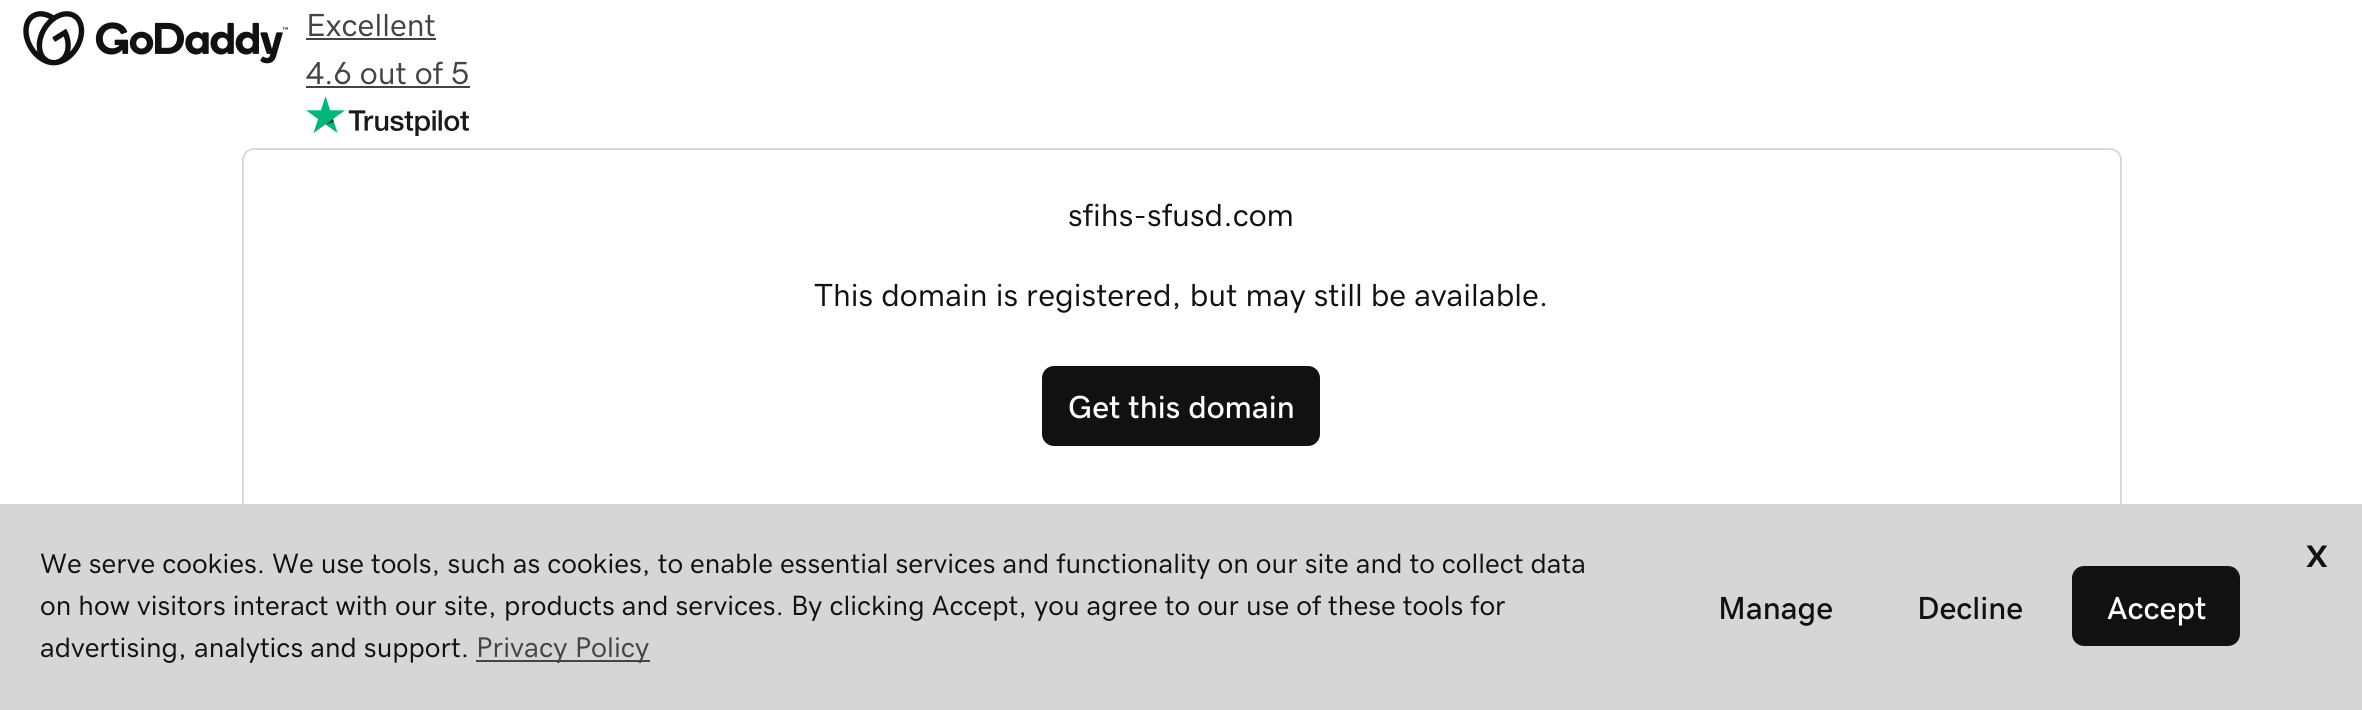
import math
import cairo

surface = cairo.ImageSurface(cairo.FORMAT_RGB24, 2362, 710)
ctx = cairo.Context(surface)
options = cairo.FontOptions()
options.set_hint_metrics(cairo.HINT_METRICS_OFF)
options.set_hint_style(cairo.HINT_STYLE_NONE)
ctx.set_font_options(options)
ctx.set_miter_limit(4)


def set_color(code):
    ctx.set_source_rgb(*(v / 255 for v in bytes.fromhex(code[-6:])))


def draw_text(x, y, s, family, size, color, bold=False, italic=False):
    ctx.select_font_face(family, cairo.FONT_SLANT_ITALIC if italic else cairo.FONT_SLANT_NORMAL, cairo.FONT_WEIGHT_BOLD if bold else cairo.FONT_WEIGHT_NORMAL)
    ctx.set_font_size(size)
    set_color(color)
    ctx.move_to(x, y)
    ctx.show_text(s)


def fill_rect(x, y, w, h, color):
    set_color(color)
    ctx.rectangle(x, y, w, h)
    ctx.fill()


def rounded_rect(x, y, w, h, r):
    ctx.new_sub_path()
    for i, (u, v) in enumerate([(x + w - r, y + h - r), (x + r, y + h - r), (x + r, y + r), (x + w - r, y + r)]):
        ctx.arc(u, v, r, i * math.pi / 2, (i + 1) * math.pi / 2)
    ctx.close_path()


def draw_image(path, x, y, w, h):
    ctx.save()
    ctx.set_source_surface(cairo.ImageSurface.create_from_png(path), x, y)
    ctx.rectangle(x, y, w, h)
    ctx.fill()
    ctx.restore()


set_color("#ffffff")
ctx.paint()
draw_image("assets/img1.png", 23, 11, 265, 55)
draw_text(306, 36, "Excellent", "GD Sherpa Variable", 32, "#444444")
fill_rect(306, 38, 130, 2, "#444444")
draw_text(306, 84, "4.6 out of 5", "GD Sherpa Variable", 32, "#444444")
fill_rect(306, 86, 164, 2, "#444444")
draw_image("assets/img2.png", 306, 96, 163, 40)
rounded_rect(243, 149, 1878, 434, 11)
set_color("#d4dbe0")
ctx.stroke()
draw_text(1068, 226, "sfihs-sfusd.com", "GD Sherpa Variable", 32, "#111111")
draw_text(814, 306, "This domain is registered, but may still be available.", "GD Sherpa Variable", 32, "#111111")
rounded_rect(1043, 367, 276, 78, 11)
ctx.fill_preserve()
ctx.stroke()
draw_text(1068, 418, "Get this domain", "GD Sherpa Variable Medium", 32, "#ffffff")
fill_rect(0, 504, 2362, 206, "#d6d6d6")
draw_text(40, 573, "We serve cookies. We use tools, such as cookies, to enable essential services and functionality on our site and to collect data", "GD Sherpa Variable", 28, "#111111")
draw_text(40, 615, "on how visitors interact with our site, products and services. By clicking Accept, you agree to our use of these tools for", "GD Sherpa Variable", 28, "#111111")
draw_text(40, 657, "advertising, analytics and support.", "GD Sherpa Variable", 28, "#111111")
fill_rect(476, 660, 174, 2, "#444444")
draw_text(476, 657, "Privacy Policy", "GD Sherpa Variable", 28.5, "#444444")
draw_text(1718, 619, "Manage", "GD Sherpa Variable Medium", 32, "#111111")
draw_text(1917, 619, "Decline", "GD Sherpa Variable Medium", 32, "#111111")
rounded_rect(2073, 567, 166, 78, 11)
ctx.fill_preserve()
ctx.stroke()
draw_text(2107, 619, "Accept", "GD Sherpa Variable Medium", 32, "#ffffff")
draw_text(2306, 567, "x", "GD Sherpa Variable Medium", 44, "#111111")
surface.write_to_png("output.png")
